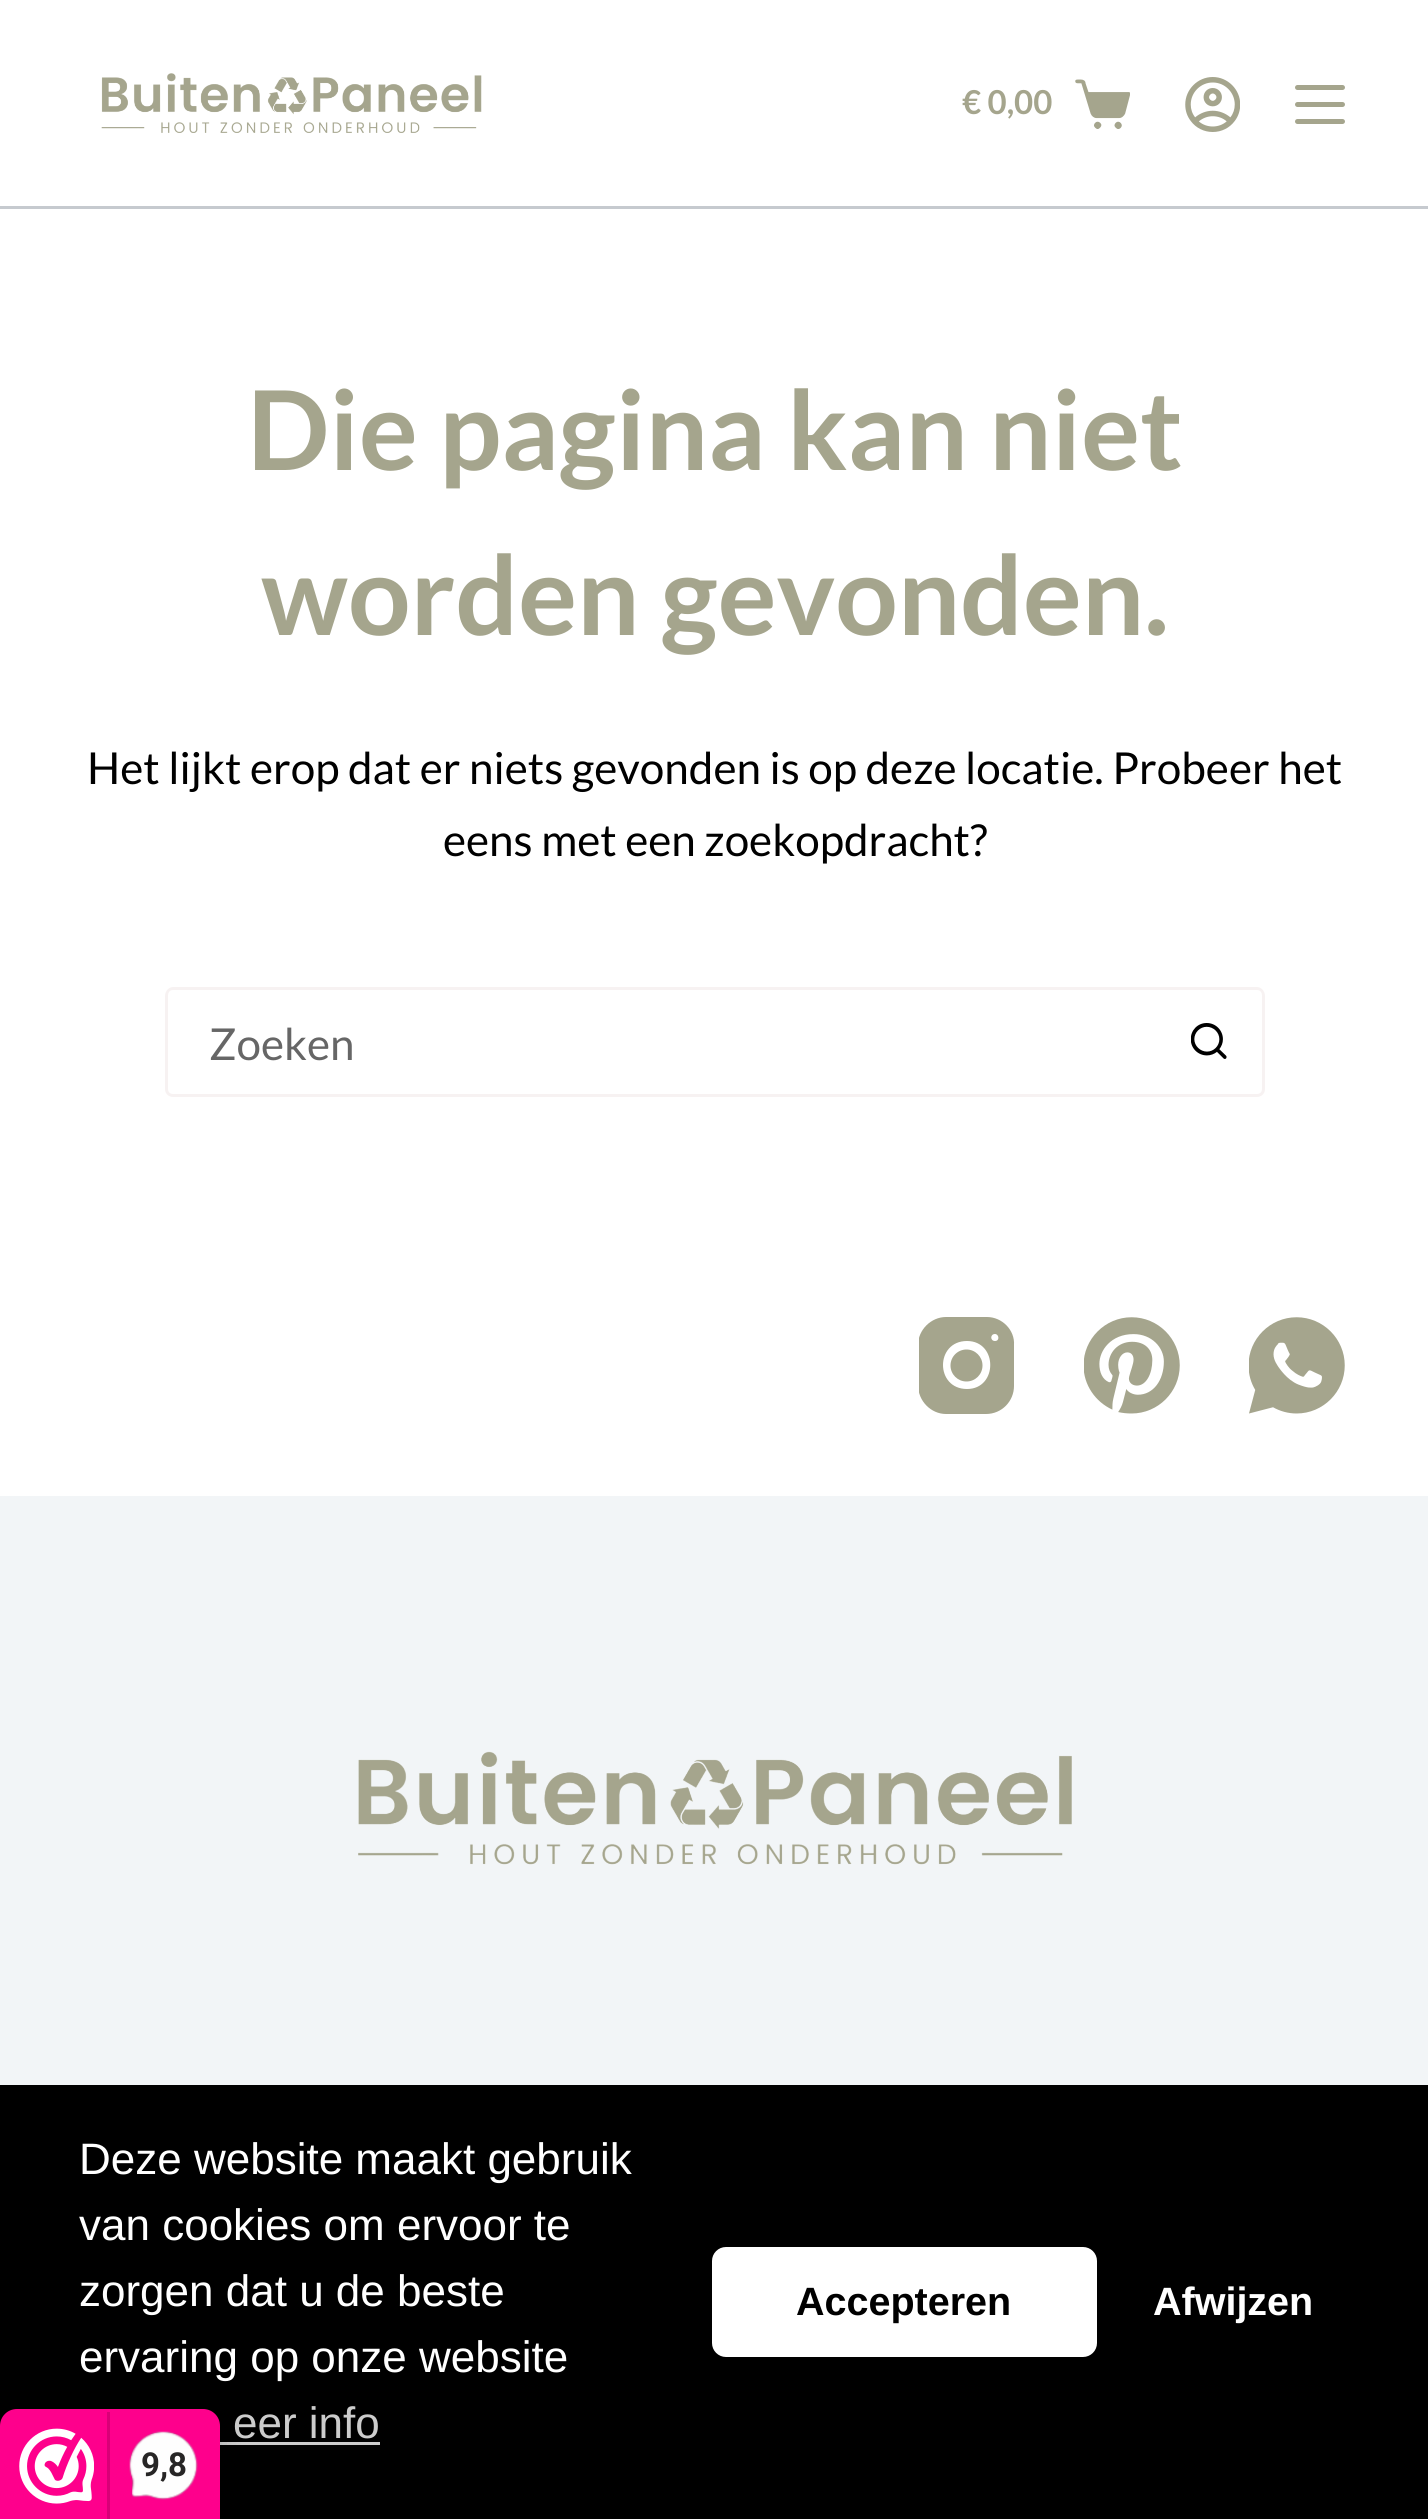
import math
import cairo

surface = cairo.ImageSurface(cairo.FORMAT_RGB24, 1428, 2519)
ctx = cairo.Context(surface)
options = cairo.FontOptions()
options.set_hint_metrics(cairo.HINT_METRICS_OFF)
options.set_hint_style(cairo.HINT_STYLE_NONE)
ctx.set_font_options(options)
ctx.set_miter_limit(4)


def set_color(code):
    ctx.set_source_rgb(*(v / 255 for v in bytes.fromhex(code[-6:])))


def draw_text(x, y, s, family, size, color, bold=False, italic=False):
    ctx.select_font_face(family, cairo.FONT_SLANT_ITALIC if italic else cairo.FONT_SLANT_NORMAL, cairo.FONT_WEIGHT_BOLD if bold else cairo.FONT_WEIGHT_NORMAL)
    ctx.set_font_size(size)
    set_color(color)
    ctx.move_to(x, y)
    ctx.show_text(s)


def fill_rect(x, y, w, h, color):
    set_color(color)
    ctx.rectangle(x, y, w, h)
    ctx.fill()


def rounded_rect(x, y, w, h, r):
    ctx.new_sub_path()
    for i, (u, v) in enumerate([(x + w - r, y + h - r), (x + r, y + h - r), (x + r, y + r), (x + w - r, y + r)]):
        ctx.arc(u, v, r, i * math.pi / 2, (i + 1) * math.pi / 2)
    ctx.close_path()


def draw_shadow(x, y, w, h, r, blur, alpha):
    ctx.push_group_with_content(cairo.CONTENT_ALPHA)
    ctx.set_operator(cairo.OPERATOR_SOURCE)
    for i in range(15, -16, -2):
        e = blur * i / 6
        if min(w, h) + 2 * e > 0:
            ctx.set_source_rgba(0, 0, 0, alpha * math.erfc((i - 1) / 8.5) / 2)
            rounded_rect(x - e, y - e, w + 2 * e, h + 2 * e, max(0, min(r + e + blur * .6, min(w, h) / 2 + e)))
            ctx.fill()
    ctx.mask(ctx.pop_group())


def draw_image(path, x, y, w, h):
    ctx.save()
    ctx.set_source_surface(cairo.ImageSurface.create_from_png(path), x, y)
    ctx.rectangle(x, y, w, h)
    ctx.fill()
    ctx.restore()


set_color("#ffffff")
ctx.paint()
fill_rect(0, 206, 1428, 3, "#c6cacf")
draw_image("assets/img1.png", 101, 73, 381, 60)
draw_text(962, 114, "€ 0,00", "Lato", 33, "#a5a58d", bold=True)
draw_image("assets/img2.png", 1075, 79, 55, 50)
draw_image("assets/img3.png", 1185, 77, 55, 55)
rounded_rect(1295, 85, 50, 5, 2.5)
ctx.fill()
rounded_rect(1295, 102, 50, 5, 2.5)
ctx.fill()
rounded_rect(1295, 119, 50, 5, 2.5)
ctx.fill()
draw_text(247, 470, "Die pagina kan niet", "Lato", 110, "#a5a58d", bold=True)
draw_text(261, 635, "worden gevonden.", "Lato", 110, "#a5a58d", bold=True)
draw_text(87, 784, "Het lijkt erop dat er niets gevonden is op deze locatie. Probeer het", "Lato", 44, "#000000")
draw_text(443, 856, "eens met een zoekopdracht?", "Lato", 44, "#000000")
set_color("#f7f2f2")
ctx.set_fill_rule(cairo.FILL_RULE_EVEN_ODD)
ctx.new_path()
ctx.move_to(173, 987)
ctx.line_to(1155, 987)
ctx.line_to(1155, 1097)
ctx.line_to(173, 1097)
ctx.curve_to(169, 1097, 165, 1094, 165, 1089)
ctx.line_to(165, 996)
ctx.curve_to(165, 991, 169, 987, 173, 987)
ctx.close_path()
ctx.move_to(173, 990)
ctx.line_to(1155, 990)
ctx.line_to(1155, 1094)
ctx.line_to(173, 1094)
ctx.curve_to(170, 1094, 168, 1092, 168, 1089)
ctx.line_to(168, 996)
ctx.curve_to(168, 992, 170, 990, 173, 990)
ctx.close_path()
ctx.fill()
draw_text(209, 1060, "Zoeken", "Lato", 44, "#666666")
set_color("#f7f2f2")
ctx.new_path()
ctx.move_to(1155, 987)
ctx.line_to(1257, 987)
ctx.curve_to(1261, 987, 1265, 991, 1265, 996)
ctx.line_to(1265, 1089)
ctx.curve_to(1265, 1094, 1261, 1097, 1257, 1097)
ctx.line_to(1155, 1097)
ctx.close_path()
ctx.move_to(1155, 990)
ctx.line_to(1257, 990)
ctx.curve_to(1260, 990, 1262, 992, 1262, 996)
ctx.line_to(1262, 1089)
ctx.curve_to(1262, 1092, 1260, 1094, 1257, 1094)
ctx.line_to(1155, 1094)
ctx.close_path()
ctx.fill()
draw_image("assets/img4.png", 1191, 1023, 36, 36)
fill_rect(0, 1496, 1428, 589, "#f2f5f7")
set_color("#a5a58d")
ctx.arc(966.5, 1365.5, 16, 0, 2 * math.pi)
ctx.fill()
ctx.save()
ctx.set_fill_rule(cairo.FILL_RULE_WINDING)
ctx.rectangle(919, 1317, 96, 97)
ctx.clip()
ctx.new_path()
ctx.move_to(987, 1317)
ctx.line_to(946, 1317)
ctx.curve_to(931, 1317, 918, 1330, 918, 1345)
ctx.line_to(918, 1385)
ctx.curve_to(918, 1401, 931, 1414, 946, 1414)
ctx.line_to(986, 1414)
ctx.curve_to(1002, 1414, 1014, 1401, 1014, 1386)
ctx.line_to(1014, 1345)
ctx.curve_to(1015, 1330, 1002, 1317, 987, 1317)
ctx.close_path()
ctx.move_to(967, 1389)
ctx.curve_to(935, 1389, 935, 1341, 967, 1341)
ctx.curve_to(998, 1341, 998, 1389, 967, 1389)
ctx.close_path()
ctx.move_to(995, 1341)
ctx.curve_to(990, 1341, 990, 1334, 995, 1334)
ctx.curve_to(999, 1334, 1000, 1341, 995, 1341)
ctx.close_path()
ctx.fill()
ctx.restore()
draw_image("assets/img5.png", 1084, 1317, 96, 97)
draw_image("assets/img6.png", 1249, 1317, 96, 97)
draw_image("assets/img7.png", 358, 1751, 714, 114)
fill_rect(0, 2085, 1428, 434, "#000000")
draw_text(79, 2174, "Deze website maakt gebruik", "Liberation Sans", 44, "#ffffff")
draw_text(79, 2240, "van cookies om ervoor te", "Liberation Sans", 44, "#ffffff")
draw_text(79, 2306, "zorgen dat u de beste", "Liberation Sans", 44, "#ffffff")
draw_text(79, 2372, "ervaring op onze website", "Liberation Sans", 44, "#ffffff")
draw_text(233, 2438, "eer info", "Liberation Sans", 44, "#cccccc")
fill_rect(220, 2442, 160, 3, "#cccccc")
set_color("#ffffff")
rounded_rect(712, 2247, 385, 110, 14)
ctx.fill()
draw_text(796, 2315, "Accepteren", "Liberation Sans", 39.5, "#000000", bold=True)
draw_text(1153, 2315, "Afwijzen", "Liberation Sans", 39.5, "#ffffff", bold=True)
set_color("#000000")
draw_shadow(0, 2415, 220, 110, 17, 14, 0.15)
set_color("#fe008c")
ctx.new_path()
ctx.move_to(17, 2409)
ctx.line_to(203, 2409)
ctx.curve_to(212.5, 2409, 220, 2416.5, 220, 2426)
ctx.line_to(220, 2519)
ctx.line_to(0, 2519)
ctx.line_to(0, 2426)
ctx.curve_to(0, 2416.5, 7.5, 2409, 17, 2409)
ctx.close_path()
ctx.fill()
draw_image("assets/img8.png", 19, 2428, 75, 76)
fill_rect(107, 2412, 3, 107, "#d80077")
draw_image("assets/img9.png", 129, 2431, 69, 69)
draw_text(141, 2476, "9,8", "Roboto", 33, "#272626", bold=True)
surface.write_to_png("output.png")
